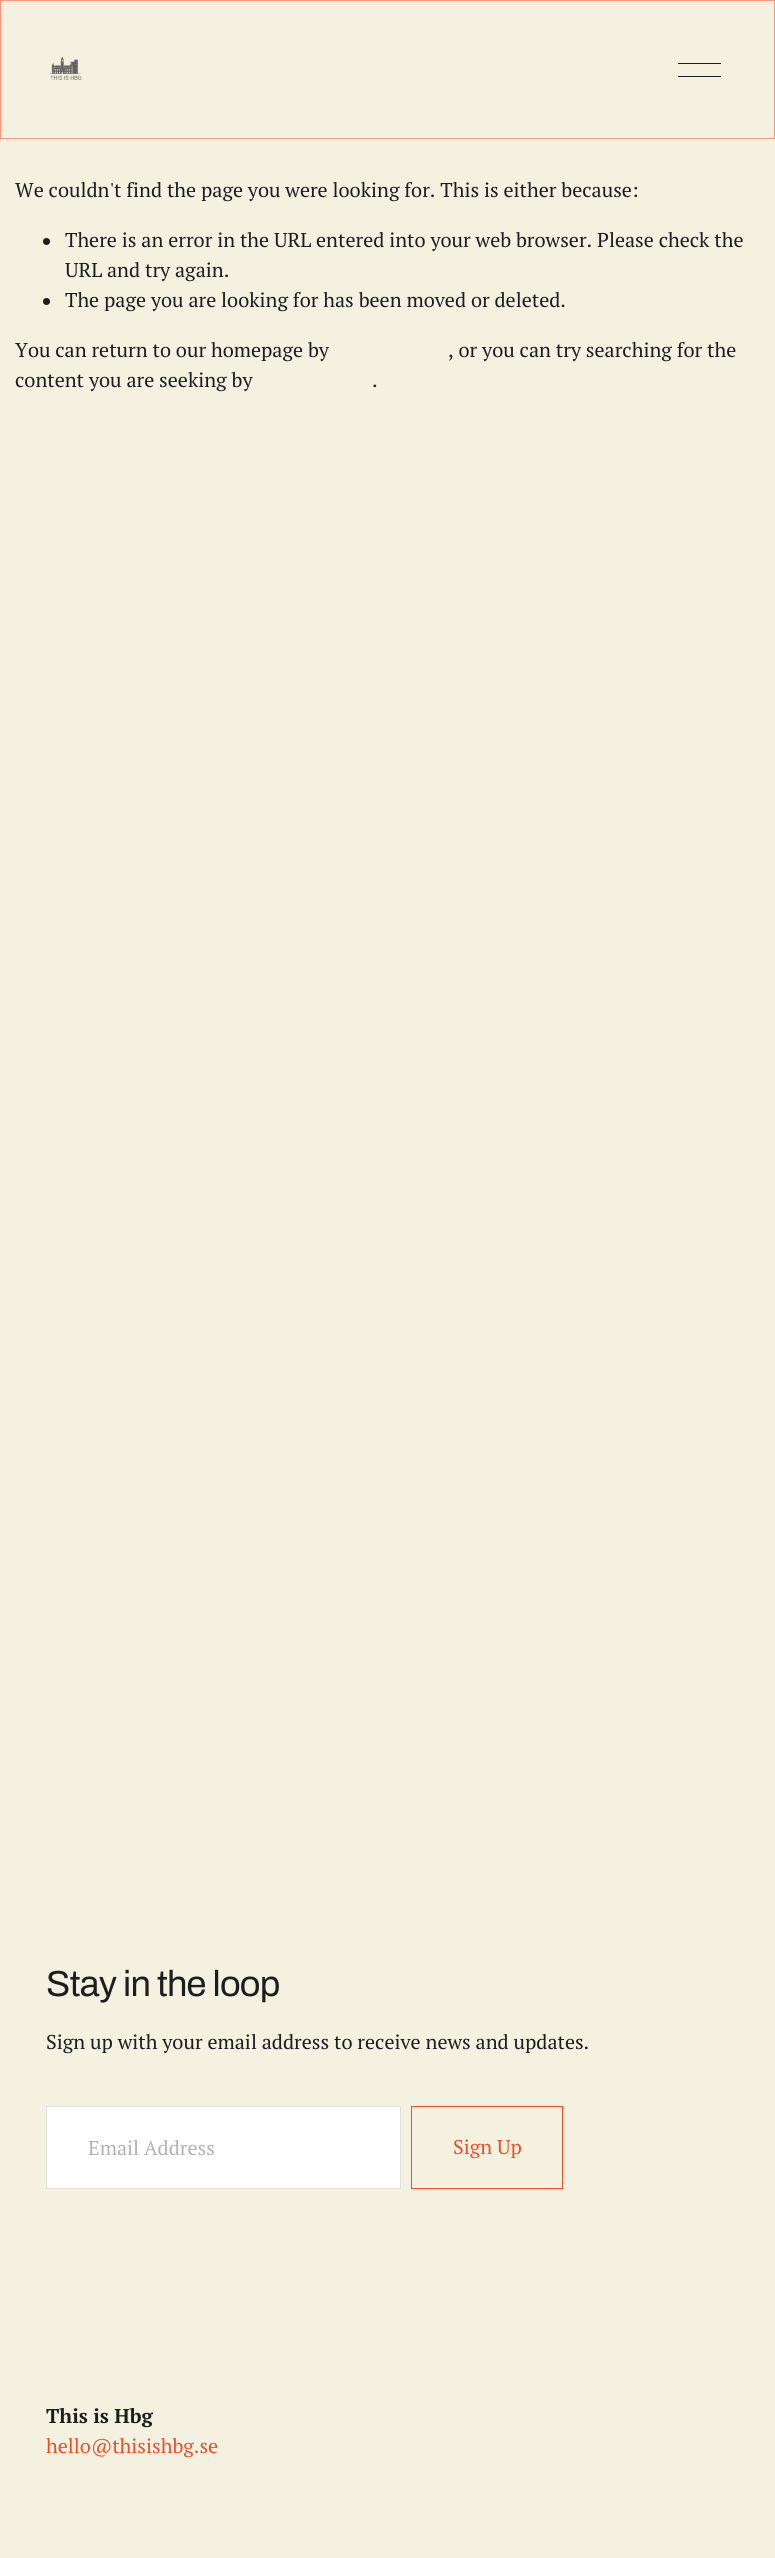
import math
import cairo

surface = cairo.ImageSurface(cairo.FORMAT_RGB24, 775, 2558)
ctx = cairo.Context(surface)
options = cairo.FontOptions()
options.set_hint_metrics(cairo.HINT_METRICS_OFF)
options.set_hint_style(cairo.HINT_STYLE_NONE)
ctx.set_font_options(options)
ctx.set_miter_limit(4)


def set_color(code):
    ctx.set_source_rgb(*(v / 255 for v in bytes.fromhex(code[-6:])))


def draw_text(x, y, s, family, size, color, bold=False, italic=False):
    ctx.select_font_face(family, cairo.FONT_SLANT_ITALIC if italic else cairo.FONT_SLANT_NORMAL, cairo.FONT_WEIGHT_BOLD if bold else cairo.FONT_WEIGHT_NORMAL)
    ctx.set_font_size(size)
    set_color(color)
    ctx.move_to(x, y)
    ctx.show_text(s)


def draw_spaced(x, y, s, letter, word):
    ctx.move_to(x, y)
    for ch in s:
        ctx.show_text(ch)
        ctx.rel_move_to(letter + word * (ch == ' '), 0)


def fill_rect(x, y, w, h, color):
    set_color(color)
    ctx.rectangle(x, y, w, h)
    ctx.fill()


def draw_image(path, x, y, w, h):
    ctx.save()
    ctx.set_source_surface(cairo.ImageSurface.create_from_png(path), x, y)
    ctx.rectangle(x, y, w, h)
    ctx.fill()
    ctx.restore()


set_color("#f4f1e0")
ctx.paint()
ctx.rectangle(0.5, 0.5, 774, 138)
set_color("#ef9c7e")
ctx.set_line_width(1)
ctx.stroke()
draw_image("assets/img1.png", 49, 56, 33, 24)
fill_rect(678, 63, 43, 1, "#1d1d1d")
fill_rect(678, 76, 43, 1, "#1d1d1d")
draw_text(15, 197, "We couldn't find the page you were looking for. This is either because:", "PT Serif", 20, "#1d1d1d")
ctx.new_path()
ctx.arc(46.5, 241.5, 3.5, 0, 2 * math.pi)
ctx.fill()
draw_text(65, 247, "There is an error in the URL entered into your web browser. Please check the", "PT Serif", 20, "#1d1d1d")
draw_text(65, 277, "URL and try again.", "PT Serif", 20, "#1d1d1d")
ctx.new_path()
ctx.arc(46.5, 301.5, 3.5, 0, 2 * math.pi)
ctx.fill()
draw_text(65, 307, "The page you are looking for has been moved or deleted.", "PT Serif", 20, "#1d1d1d")
draw_text(15, 357, "You can return to our homepage by", "PT Serif", 20, "#1d1d1d")
draw_text(448, 357, ", or you can try searching for the", "PT Serif", 20, "#1d1d1d")
draw_text(15, 387, "content you are seeking by", "PT Serif", 20, "#1d1d1d")
draw_text(372, 387, ".", "PT Serif", 20, "#1d1d1d")
ctx.select_font_face("Archivo")
ctx.set_font_size(36.25)
draw_spaced(46, 1996, "Stay in the loop", -0.75, 0)
draw_text(46, 2049, "Sign up with your email address to receive news and updates.", "PT Serif", 20, "#1d1d1d")
set_color("#ffffff")
ctx.rectangle(46.5, 2106.5, 354, 82)
ctx.fill_preserve()
set_color("#e0e0e0")
ctx.stroke()
draw_text(88, 2155, "Email Address", "PT Serif", 20, "#b3b3b3")
ctx.rectangle(411.5, 2106.5, 151, 82)
set_color("#eb5027")
ctx.stroke()
draw_text(453, 2154, "Sign Up", "PT Serif", 20, "#eb5027")
draw_text(46, 2423, "This is Hbg", "PT Serif", 20, "#1d1d1d", bold=True)
draw_text(46, 2453, "hello@thisishbg.se", "PT Serif", 20, "#eb5027")
surface.write_to_png("output.png")
